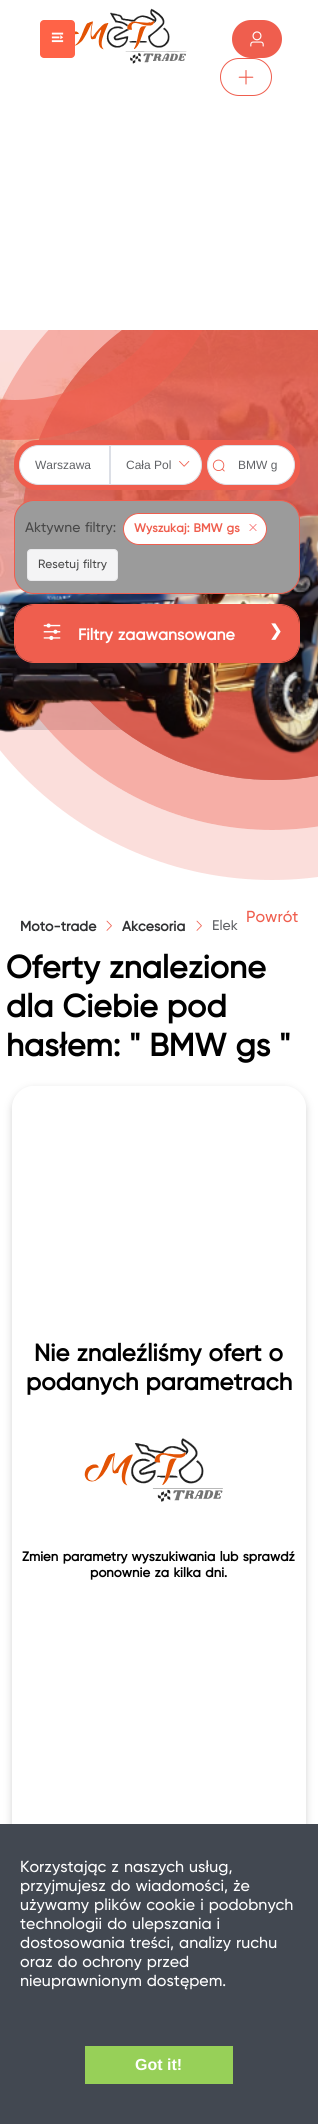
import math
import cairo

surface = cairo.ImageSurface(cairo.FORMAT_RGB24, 318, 2124)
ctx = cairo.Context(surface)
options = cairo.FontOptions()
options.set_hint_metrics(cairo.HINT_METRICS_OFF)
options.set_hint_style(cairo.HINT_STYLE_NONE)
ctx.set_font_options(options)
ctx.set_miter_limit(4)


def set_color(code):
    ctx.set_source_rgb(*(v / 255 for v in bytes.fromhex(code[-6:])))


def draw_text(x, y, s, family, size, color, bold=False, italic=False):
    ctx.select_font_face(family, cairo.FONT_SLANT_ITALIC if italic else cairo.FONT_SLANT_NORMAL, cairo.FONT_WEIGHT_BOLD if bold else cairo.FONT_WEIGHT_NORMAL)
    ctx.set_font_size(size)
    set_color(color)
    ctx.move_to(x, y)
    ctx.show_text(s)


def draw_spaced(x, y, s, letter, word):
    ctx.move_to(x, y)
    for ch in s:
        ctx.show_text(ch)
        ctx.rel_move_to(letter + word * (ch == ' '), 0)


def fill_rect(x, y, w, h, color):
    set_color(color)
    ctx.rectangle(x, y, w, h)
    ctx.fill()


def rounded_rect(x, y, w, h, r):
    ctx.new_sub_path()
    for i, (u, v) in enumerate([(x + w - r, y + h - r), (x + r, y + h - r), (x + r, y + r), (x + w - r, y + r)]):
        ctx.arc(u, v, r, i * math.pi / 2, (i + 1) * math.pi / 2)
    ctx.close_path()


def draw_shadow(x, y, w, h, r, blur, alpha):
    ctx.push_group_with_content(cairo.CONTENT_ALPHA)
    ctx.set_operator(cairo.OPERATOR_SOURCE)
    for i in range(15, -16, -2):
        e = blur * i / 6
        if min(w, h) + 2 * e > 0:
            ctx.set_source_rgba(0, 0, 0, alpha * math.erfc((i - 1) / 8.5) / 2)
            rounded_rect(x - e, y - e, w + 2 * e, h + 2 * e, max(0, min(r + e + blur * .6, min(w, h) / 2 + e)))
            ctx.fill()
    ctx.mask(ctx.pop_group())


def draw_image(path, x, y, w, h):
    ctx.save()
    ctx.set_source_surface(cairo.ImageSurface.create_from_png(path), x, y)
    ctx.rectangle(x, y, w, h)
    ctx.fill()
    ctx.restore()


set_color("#ffffff")
ctx.paint()
draw_image("assets/img5.png", 23, 330, 295, 450)
draw_image("assets/img7.png", 0, 330, 318, 400)
ctx.save()
ctx.rectangle(0, 330, 318, 550)
ctx.clip()
ctx.arc(272, 530, 325, 0, 2 * math.pi)
ctx.set_source_rgba(0.937, 0.369, 0.306, 0.2)
ctx.set_line_width(50)
ctx.stroke()
ctx.set_source_rgba(0.937, 0.369, 0.306, 0.5)
ctx.arc(272, 530, 300, 0, 2 * math.pi)
ctx.fill()
ctx.set_source_rgba(0.937, 0.369, 0.306, 0.7)
ctx.arc(272, 530, 250, 0, 2 * math.pi)
ctx.fill()
ctx.arc(15, 225, 195, 0, 2 * math.pi)
ctx.set_source_rgba(0.937, 0.369, 0.306, 0.6)
ctx.set_line_width(40)
ctx.stroke()
ctx.restore()
set_color("#ff6347")
rounded_rect(40, 20, 35, 38, 4)
ctx.fill()
draw_image("assets/img1.png", 51, 32, 13, 11)
draw_image("assets/img2.png", 75, 8, 112, 56)
set_color("#ef5e4e")
rounded_rect(232, 20, 50, 38, 19)
ctx.fill()
draw_image("assets/img3.png", 250, 31, 14, 16)
rounded_rect(220.5, 58.5, 51, 37, 18.5)
ctx.set_line_width(1)
ctx.stroke()
draw_image("assets/img4.png", 238, 70, 16, 15)
draw_image("assets/img6.png", 0, 514, 318, 240)
rounded_rect(16.5, 442.5, 281, 45, 20.5)
ctx.fill_preserve()
ctx.set_line_width(5)
ctx.stroke()
set_color("#ffffff")
ctx.new_path()
ctx.move_to(39, 445.5)
ctx.line_to(109.5, 445.5)
ctx.line_to(109.5, 484.5)
ctx.line_to(39, 484.5)
ctx.curve_to(28, 484.5, 19.5, 476, 19.5, 465)
ctx.curve_to(19.5, 454, 28, 445.5, 39, 445.5)
ctx.close_path()
ctx.fill_preserve()
set_color("#dcdfe6")
ctx.set_line_width(1)
ctx.stroke()
draw_text(35, 469, "Warszawa", "Liberation Sans", 12, "#606266")
set_color("#ffffff")
ctx.new_path()
ctx.move_to(110.5, 445.5)
ctx.line_to(182, 445.5)
ctx.curve_to(193, 445.5, 201.5, 454, 201.5, 465)
ctx.curve_to(201.5, 476, 193, 484.5, 182, 484.5)
ctx.line_to(110.5, 484.5)
ctx.close_path()
ctx.fill_preserve()
set_color("#dcdfe6")
ctx.stroke()
draw_text(126, 469, "Cała Pol", "Liberation Sans", 12, "#606266")
draw_image("assets/img8.png", 179, 461, 11, 6)
set_color("#ffffff")
rounded_rect(207.5, 445.5, 87, 39, 19.5)
ctx.fill_preserve()
set_color("#dcdfe6")
ctx.stroke()
draw_image("assets/img9.png", 212, 459, 13, 13)
draw_text(238, 469, "BMW g", "Liberation Sans", 12, "#606266")
set_color("#9b9b9b")
rounded_rect(14.5, 500.5, 285, 93, 19.5)
ctx.fill_preserve()
set_color("#ef5e4e")
ctx.stroke()
ctx.select_font_face("Gilroy Medium")
ctx.set_font_size(14)
set_color("#484848")
draw_spaced(25, 532, "Aktywne filtry:", 0, 1)
set_color("#ffffff")
rounded_rect(123.5, 513.5, 143, 31, 15.5)
ctx.fill_preserve()
set_color("#ef5e4e")
ctx.stroke()
ctx.select_font_face("Gilroy", cairo.FONT_SLANT_NORMAL, cairo.FONT_WEIGHT_BOLD)
ctx.set_font_size(12)
draw_spaced(134, 532, "Wyszukaj: BMW gs", 0, 1)
draw_image("assets/img10.png", 249, 524, 8, 7)
set_color("#f4f4f5")
rounded_rect(27.5, 549.5, 90, 31, 3.5)
ctx.fill_preserve()
set_color("#e9e9eb")
ctx.stroke()
ctx.select_font_face("Gilroy Medium")
set_color("#484848")
draw_spaced(38, 568, "Resetuj filtry", 0, 1)
rounded_rect(14.5, 604.5, 285, 58, 19.5)
set_color("#ef5e4e")
ctx.stroke()
rounded_rect(15, 605, 284, 57, 19)
ctx.fill()
draw_image("assets/img11.png", 43, 623, 18, 17)
ctx.select_font_face("Gilroy", cairo.FONT_SLANT_NORMAL, cairo.FONT_WEIGHT_BOLD)
ctx.set_font_size(16)
set_color("#ffffff")
draw_spaced(78, 640, "Filtry zaawansowane", 0, 1)
draw_text(269, 636, "❯", "DejaVu Sans", 16, "#ffffff", bold=True)
draw_text(246, 922, "Powrót", "Gilroy Medium", 16, "#ef5e4e")
draw_text(20, 931, "Moto-trade", "Gilroy", 14, "#303133", bold=True)
draw_image("assets/img12.png", 106, 920, 6, 11)
draw_text(122, 931, "Akcesoria", "Gilroy", 14, "#303133", bold=True)
draw_image("assets/img12.png", 196, 920, 6, 11)
ctx.select_font_face("Gilroy Medium")
set_color("#606266")
draw_spaced(212, 930, "Elek", 0, 1)
ctx.select_font_face("Gilroy", cairo.FONT_SLANT_NORMAL, cairo.FONT_WEIGHT_BOLD)
ctx.set_font_size(32)
set_color("#000000")
draw_spaced(6, 978, "Oferty znalezione", 0, 1)
draw_spaced(6, 1017, "dla Ciebie pod", 0, 1)
draw_spaced(6, 1056, "hasłem: \" BMW gs \"", 0, 1)
ctx.save()
ctx.set_fill_rule(cairo.FILL_RULE_EVEN_ODD)
ctx.new_path()
ctx.move_to(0, 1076)
ctx.line_to(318, 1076)
ctx.line_to(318, 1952)
ctx.line_to(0, 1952)
ctx.close_path()
ctx.move_to(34, 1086)
ctx.line_to(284, 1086)
ctx.curve_to(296, 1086, 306, 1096, 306, 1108)
ctx.line_to(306, 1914)
ctx.curve_to(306, 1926, 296, 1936, 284, 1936)
ctx.line_to(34, 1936)
ctx.curve_to(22, 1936, 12, 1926, 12, 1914)
ctx.line_to(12, 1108)
ctx.curve_to(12, 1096, 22, 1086, 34, 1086)
ctx.close_path()
ctx.clip()
set_color("#d3d3d3")
draw_shadow(12, 1089, 294, 850, 22, 4, 1)
ctx.restore()
ctx.set_font_size(24)
draw_spaced(34, 1361, "Nie znaleźliśmy ofert o", 0, 1)
draw_spaced(26, 1390, "podanych parametrach", 0, 1)
draw_image("assets/img13.png", 84, 1438, 139, 64)
ctx.set_font_size(13.25)
draw_spaced(22, 1561, "Zmien parametry wyszukiwania lub sprawdź", 0, 1)
draw_spaced(90, 1577, "ponownie za kilka dni.", 0, 1)
fill_rect(0, 1824, 318, 300, "#424851")
ctx.select_font_face("Gilroy Medium")
ctx.set_font_size(16)
set_color("#ffffff")
draw_spaced(20, 1872, "Korzystając z naszych usług,", 0, 1)
draw_spaced(20, 1891, "przyjmujesz do wiadomości,", 0, 1)
draw_text(233, 1891, "że", "Gilroy Medium", 16, "#ffffff")
draw_spaced(20, 1910, "używamy plików cookie i podobnych", 0, 1)
draw_spaced(20, 1929, "technologii do ulepszania i", 0, 1)
draw_spaced(20, 1948, "dostosowania treści,", 0, 1)
draw_spaced(179, 1948, "analizy ruchu", 0, 1)
draw_spaced(20, 1967, "oraz do ochrony przed", 0, 1)
draw_spaced(20, 1986, "nieuprawnionym dostępem.", 0, 1)
fill_rect(85, 2046, 148, 38, "#97d058")
draw_text(135, 2070, "Got it!", "Liberation Sans", 16, "#ffffff", bold=True)
surface.write_to_png("output.png")
